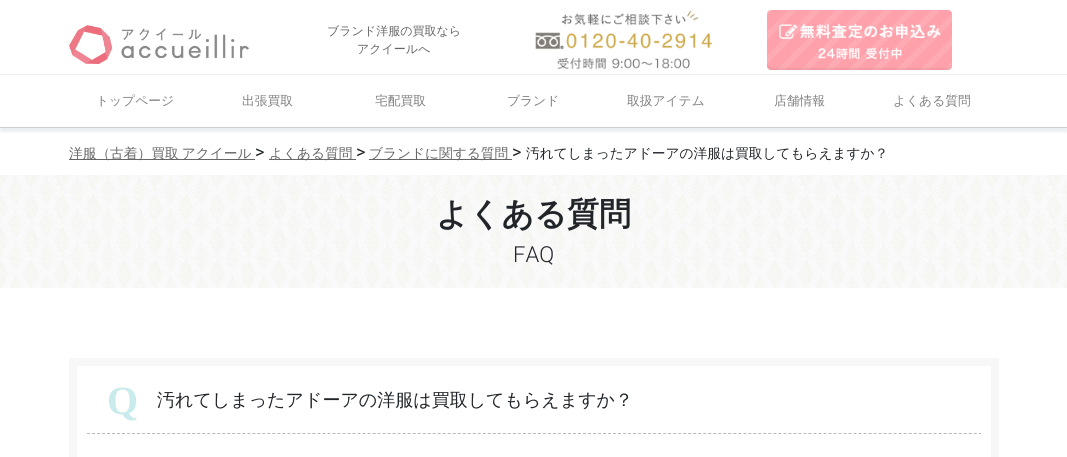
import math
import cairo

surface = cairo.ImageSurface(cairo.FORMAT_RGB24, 1067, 457)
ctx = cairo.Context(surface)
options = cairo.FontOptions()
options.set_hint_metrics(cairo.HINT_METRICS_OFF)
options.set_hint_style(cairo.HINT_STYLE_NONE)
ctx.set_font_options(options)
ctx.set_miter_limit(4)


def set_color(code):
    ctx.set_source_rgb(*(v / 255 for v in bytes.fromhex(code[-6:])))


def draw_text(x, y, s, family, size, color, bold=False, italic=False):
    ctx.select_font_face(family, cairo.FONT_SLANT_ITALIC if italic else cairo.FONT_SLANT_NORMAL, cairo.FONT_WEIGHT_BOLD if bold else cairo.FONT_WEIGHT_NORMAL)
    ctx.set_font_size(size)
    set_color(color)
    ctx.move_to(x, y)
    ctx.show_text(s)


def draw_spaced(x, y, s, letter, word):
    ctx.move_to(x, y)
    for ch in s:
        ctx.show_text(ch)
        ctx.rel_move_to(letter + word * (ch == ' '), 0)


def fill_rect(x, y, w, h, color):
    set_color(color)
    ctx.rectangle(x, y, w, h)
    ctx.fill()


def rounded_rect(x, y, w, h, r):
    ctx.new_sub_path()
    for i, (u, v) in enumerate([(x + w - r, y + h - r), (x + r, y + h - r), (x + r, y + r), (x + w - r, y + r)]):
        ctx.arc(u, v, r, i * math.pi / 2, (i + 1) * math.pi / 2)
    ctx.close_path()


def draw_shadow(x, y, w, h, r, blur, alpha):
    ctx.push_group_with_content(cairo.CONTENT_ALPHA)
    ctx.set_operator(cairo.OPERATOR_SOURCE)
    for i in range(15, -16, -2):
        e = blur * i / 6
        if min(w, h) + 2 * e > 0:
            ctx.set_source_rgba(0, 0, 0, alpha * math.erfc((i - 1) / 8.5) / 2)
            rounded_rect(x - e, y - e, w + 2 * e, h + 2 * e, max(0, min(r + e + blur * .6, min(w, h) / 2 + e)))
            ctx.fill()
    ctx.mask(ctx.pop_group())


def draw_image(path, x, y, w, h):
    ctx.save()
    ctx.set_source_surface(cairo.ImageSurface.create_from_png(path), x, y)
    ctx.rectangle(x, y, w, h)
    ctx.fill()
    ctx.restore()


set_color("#ffffff")
ctx.paint()
ctx.save()
ctx.rectangle(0, 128, 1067, 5)
ctx.clip()
set_color("#054971")
draw_shadow(0, 4, 1067, 128, 0, 1.5, 0.09)
ctx.restore()
fill_rect(0, 127, 1067, 1, "#cccccc")
draw_image("assets/img1.png", 69, 25, 180, 39)
draw_text(327, 35, "ブランド洋服の買取なら", "WenQuanYi Zen Hei Medium", 12, "#666666")
draw_text(357, 53, "アクイールへ", "WenQuanYi Zen Hei Medium", 12, "#666666")
draw_image("assets/img2.png", 535, 10, 177, 60)
draw_image("assets/img3.png", 767, 10, 185, 60)
fill_rect(0, 74, 1067, 1, "#eeeeee")
draw_text(96, 105, "トップページ", "WenQuanYi Zen Hei Medium", 12.75, "#808080")
draw_text(242, 105, "出張買取", "WenQuanYi Zen Hei Medium", 12.75, "#808080")
draw_text(375, 105, "宅配買取", "WenQuanYi Zen Hei Medium", 12.75, "#808080")
draw_text(507, 105, "ブランド", "WenQuanYi Zen Hei Medium", 12.75, "#808080")
draw_text(627, 105, "取扱アイテム", "WenQuanYi Zen Hei Medium", 12.75, "#808080")
draw_text(774, 105, "店舗情報", "WenQuanYi Zen Hei Medium", 12.75, "#808080")
draw_text(893, 105, "よくある質問", "WenQuanYi Zen Hei Medium", 12.75, "#808080")
fill_rect(69, 159, 182, 1, "#666666")
ctx.set_font_size(13.7)
draw_spaced(69, 158, "洋服（古着）買取 アクイール", 0, -1)
fill_rect(251, 159, 4, 1, "#666666")
draw_text(255, 158, ">", "Roboto", 18, "#212529")
fill_rect(269, 159, 87, 1, "#666666")
draw_text(269, 158, "よくある質問", "WenQuanYi Zen Hei Medium", 13.7, "#666666")
draw_text(356, 158, ">", "Roboto", 18, "#212529")
fill_rect(369, 159, 143, 1, "#666666")
draw_text(369, 158, "ブランドに関する質問", "WenQuanYi Zen Hei Medium", 13.7, "#666666")
draw_text(512, 158, ">", "Roboto", 18, "#212529")
draw_text(526, 158, "汚れてしまったアドーアの洋服は買取してもらえますか？", "WenQuanYi Zen Hei Medium", 13.7, "#212529")
draw_image("assets/img4.png", 0, 175, 1067, 113)
draw_text(436, 225, "よくある質問", "WenQuanYi Zen Hei", 32, "#212529", bold=True)
draw_text(513, 262, "FAQ", "Roboto Light", 22, "#212529")
ctx.rectangle(73, 362, 922, 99)
set_color("#f7f7f7")
ctx.set_line_width(8)
ctx.stroke()
draw_text(107, 414, "Q", "Liberation Serif", 40, "#c9ebec", bold=True)
draw_text(157, 406, "汚れてしまったアドーアの洋服は買取してもらえますか？", "WenQuanYi Zen Hei Medium", 18, "#212529")
ctx.new_path()
ctx.move_to(87, 433.5)
ctx.line_to(981, 433.5)
set_color("#b9b9b9")
ctx.set_line_width(1)
ctx.set_dash([3, 2.01])
ctx.stroke()
surface.write_to_png("output.png")
